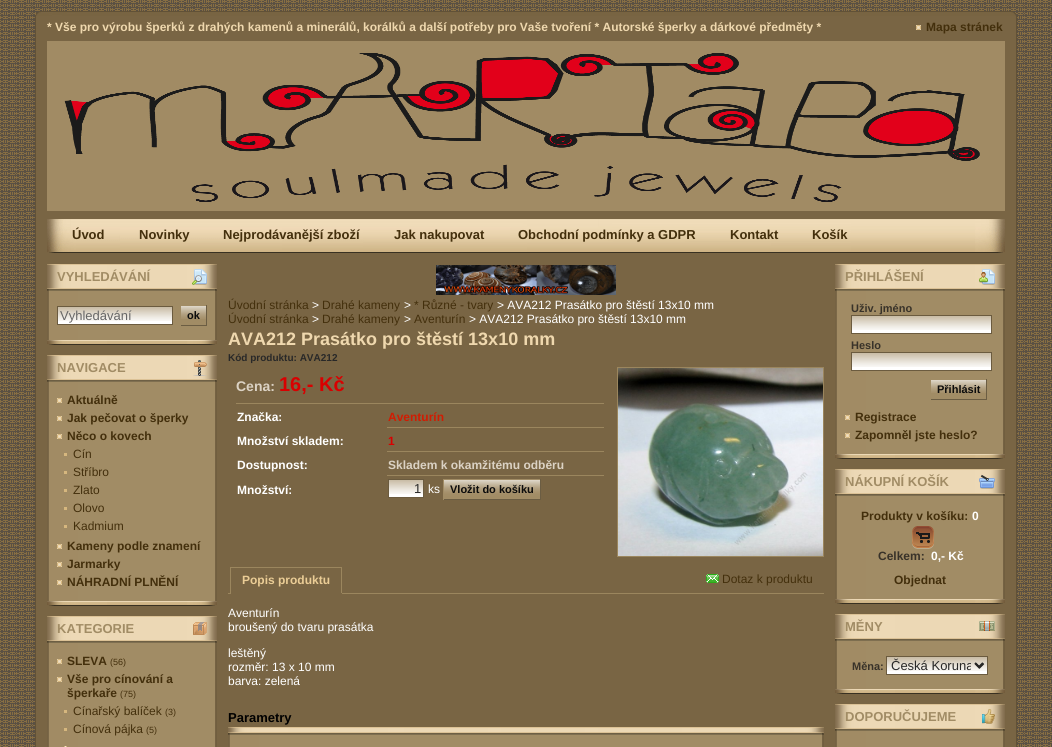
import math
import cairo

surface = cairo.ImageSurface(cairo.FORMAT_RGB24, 1052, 747)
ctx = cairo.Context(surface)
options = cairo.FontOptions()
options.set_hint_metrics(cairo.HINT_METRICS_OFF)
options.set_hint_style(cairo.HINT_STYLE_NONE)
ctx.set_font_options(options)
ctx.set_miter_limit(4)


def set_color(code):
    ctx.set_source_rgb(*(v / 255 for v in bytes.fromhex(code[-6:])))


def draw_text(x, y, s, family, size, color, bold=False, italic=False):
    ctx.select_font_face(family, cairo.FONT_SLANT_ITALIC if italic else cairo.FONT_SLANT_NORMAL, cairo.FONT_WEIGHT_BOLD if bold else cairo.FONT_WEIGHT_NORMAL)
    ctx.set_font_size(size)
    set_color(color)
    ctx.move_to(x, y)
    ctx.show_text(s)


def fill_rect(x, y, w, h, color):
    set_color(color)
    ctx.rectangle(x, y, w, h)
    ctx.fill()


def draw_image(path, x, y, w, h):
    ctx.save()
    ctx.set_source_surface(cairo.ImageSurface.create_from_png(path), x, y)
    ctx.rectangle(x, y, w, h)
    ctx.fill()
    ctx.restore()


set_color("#ffffff")
ctx.paint()
draw_image("assets/img1.png", 0, 0, 1052, 747)
set_color("#796544")
ctx.rectangle(35.5, 15.5, 981, 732)
ctx.fill_preserve()
set_color("#615136")
ctx.set_line_width(1)
ctx.stroke()
draw_image("assets/img2.png", 36, 11, 980, 5)
draw_text(47, 31, "* Vše pro výrobu šperků z drahých kamenů a minerálů, korálků a další potřeby pro Vaše tvoření * Autorské šperky a dárkové předměty *", "Liberation Sans", 12, "#efd8ae", bold=True)
draw_image("assets/img3.png", 916, 25, 5, 5)
draw_text(926, 31, "Mapa stránek", "Liberation Sans", 12, "#432f0c", bold=True)
fill_rect(47, 41, 958, 170, "#a18b64")
draw_image("assets/img4.png", 64, 53, 916, 149)
draw_image("assets/img5.png", 47, 219, 958, 34)
draw_text(72, 239, "Úvod", "Liberation Sans", 13, "#432f0c", bold=True)
draw_text(139, 239, "Novinky", "Liberation Sans", 13, "#432f0c", bold=True)
draw_text(223, 239, "Nejprodávanější zboží", "Liberation Sans", 13, "#432f0c", bold=True)
draw_text(394, 239, "Jak nakupovat", "Liberation Sans", 13, "#432f0c", bold=True)
draw_text(518, 239, "Obchodní podmínky a GDPR", "Liberation Sans", 13, "#432f0c", bold=True)
draw_text(730, 239, "Kontakt", "Liberation Sans", 13, "#432f0c", bold=True)
draw_text(812, 239, "Košík", "Liberation Sans", 13, "#432f0c", bold=True)
draw_image("assets/img6.png", 47, 291, 170, 456)
draw_image("assets/img7.png", 47, 264, 170, 27)
draw_image("assets/img8.png", 192, 269, 15, 16)
draw_text(57, 281, "VYHLEDÁVÁNÍ", "Liberation Sans", 13, "#a18c65", bold=True)
fill_rect(58, 321, 114, 3, "#ffffff")
draw_image("assets/img9.png", 58, 307, 114, 14)
ctx.rectangle(57.5, 306.5, 115, 18)
set_color("#6b5b3f")
ctx.stroke()
draw_text(60, 320, "Vyhledávání", "Liberation Sans", 13, "#666666")
draw_image("assets/img10.png", 181, 306, 25, 13)
fill_rect(206, 305, 1, 21, "#6b5d43")
fill_rect(180, 325, 27, 1, "#6b5d43")
fill_rect(180, 325, 1, 1, "#a18c65")
draw_text(187, 319, "ok", "Liberation Sans", 11, "#0c0c0c", bold=True)
draw_image("assets/img11.png", 47, 340, 170, 5)
draw_image("assets/img7.png", 47, 355, 170, 27)
fill_rect(47, 345, 170, 10, "#796544")
draw_image("assets/img12.png", 193, 360, 14, 16)
draw_text(57, 372, "NAVIGACE", "Liberation Sans", 13, "#a18c65", bold=True)
draw_image("assets/img3.png", 57, 398, 5, 5)
draw_text(67, 404, "Aktuálně", "Liberation Sans", 12, "#432f0c", bold=True)
draw_image("assets/img3.png", 57, 416, 5, 5)
draw_text(67, 422, "Jak pečovat o šperky", "Liberation Sans", 12, "#432f0c", bold=True)
draw_image("assets/img3.png", 57, 434, 5, 5)
draw_text(67, 440, "Něco o kovech", "Liberation Sans", 12, "#432f0c", bold=True)
fill_rect(64, 453, 3, 3, "#d6b77e")
draw_text(73, 458, "Cín", "Liberation Sans", 12, "#432f0c")
fill_rect(64, 471, 3, 3, "#d6b77e")
draw_text(73, 476, "Stříbro", "Liberation Sans", 12, "#432f0c")
fill_rect(64, 489, 3, 3, "#d6b77e")
draw_text(73, 494, "Zlato", "Liberation Sans", 12, "#432f0c")
fill_rect(64, 507, 3, 3, "#d6b77e")
draw_text(73, 512, "Olovo", "Liberation Sans", 12, "#432f0c")
fill_rect(64, 525, 3, 3, "#d6b77e")
draw_text(73, 530, "Kadmium", "Liberation Sans", 12, "#432f0c")
draw_image("assets/img3.png", 57, 544, 5, 5)
draw_text(67, 550, "Kameny podle znamení", "Liberation Sans", 12, "#432f0c", bold=True)
draw_image("assets/img3.png", 57, 562, 5, 5)
draw_text(67, 568, "Jarmarky", "Liberation Sans", 12, "#432f0c", bold=True)
draw_image("assets/img3.png", 57, 580, 5, 5)
draw_text(67, 586, "NÁHRADNÍ PLNĚNÍ", "Liberation Sans", 12, "#432f0c", bold=True)
draw_image("assets/img11.png", 47, 601, 170, 5)
draw_image("assets/img7.png", 47, 616, 170, 27)
fill_rect(47, 606, 170, 10, "#796544")
draw_image("assets/img13.png", 193, 622, 14, 13)
draw_text(57, 633, "KATEGORIE", "Liberation Sans", 13, "#a18c65", bold=True)
draw_image("assets/img3.png", 57, 659, 5, 5)
draw_text(67, 665, "SLEVA", "Liberation Sans", 12, "#432f0c", bold=True)
draw_text(110, 665, "(56)", "Liberation Sans", 9, "#432f0c")
draw_image("assets/img3.png", 57, 677, 5, 5)
draw_text(67, 683, "Vše pro cínování a", "Liberation Sans", 12, "#432f0c", bold=True)
draw_text(67, 697, "šperkaře", "Liberation Sans", 12, "#432f0c", bold=True)
draw_text(120, 697, "(75)", "Liberation Sans", 9, "#432f0c")
fill_rect(64, 710, 3, 3, "#d6b77e")
draw_text(73, 715, "Cínařský balíček", "Liberation Sans", 12, "#432f0c")
draw_text(165, 715, "(3)", "Liberation Sans", 9, "#432f0c")
fill_rect(64, 728, 3, 3, "#d6b77e")
draw_text(73, 733, "Cínová pájka", "Liberation Sans", 12, "#432f0c")
draw_text(146, 733, "(5)", "Liberation Sans", 9, "#432f0c")
draw_image("assets/img14.png", 64, 746, 3, 1)
draw_image("assets/img15.png", 436, 265, 180, 30)
draw_text(228, 309, "Úvodní stránka", "Liberation Sans", 12, "#432f0c")
draw_text(312, 309, ">", "Liberation Sans", 12, "#ffffff")
draw_text(322, 309, "Drahé kameny", "Liberation Sans", 12, "#432f0c")
draw_text(404, 309, ">", "Liberation Sans", 12, "#ffffff")
draw_text(414, 309, "* Různé - tvary", "Liberation Sans", 12, "#432f0c")
draw_text(497, 309, "> AVA212 Prasátko pro štěstí 13x10 mm", "Liberation Sans", 12, "#ffffff")
draw_text(228, 323, "Úvodní stránka", "Liberation Sans", 12, "#432f0c")
draw_text(312, 323, ">", "Liberation Sans", 12, "#ffffff")
draw_text(322, 323, "Drahé kameny", "Liberation Sans", 12, "#432f0c")
draw_text(404, 323, ">", "Liberation Sans", 12, "#ffffff")
draw_text(414, 323, "Aventurín", "Liberation Sans", 12, "#432f0c")
draw_text(469, 323, "> AVA212 Prasátko pro štěstí 13x10 mm", "Liberation Sans", 12, "#ffffff")
draw_text(228, 345, "AVA212 Prasátko pro štěstí 13x10 mm", "Liberation Sans", 18, "#efd8ae", bold=True)
draw_text(228, 361, "Kód produktu: AVA212", "Liberation Sans", 10, "#282828", bold=True)
fill_rect(236, 403, 368, 1, "#9b865e")
draw_text(236, 391, "Cena:", "Liberation Sans", 14, "#dbd2c4", bold=True)
draw_text(279, 391, "16,- Kč", "Liberation Sans", 20, "#d90000", bold=True)
draw_text(237, 421, "Značka:", "Liberation Sans", 12, "#ffffff", bold=True)
fill_rect(387, 427, 217, 1, "#9b865e")
draw_text(388, 421, "Aventurín", "Liberation Sans", 12, "#d01c02", bold=True)
draw_text(237, 445, "Množství skladem:", "Liberation Sans", 12, "#ffffff", bold=True)
fill_rect(387, 451, 217, 1, "#9b865e")
draw_text(388, 445, "1", "Liberation Sans", 12, "#d90000", bold=True)
draw_text(237, 469, "Dostupnost:", "Liberation Sans", 12, "#ffffff", bold=True)
fill_rect(387, 475, 217, 1, "#9b865e")
draw_text(388, 469, "Skladem k okamžitému odběru", "Liberation Sans", 12, "#dbd2c4", bold=True)
draw_text(237, 494, "Množství:", "Liberation Sans", 12, "#ffffff", bold=True)
fill_rect(389, 494, 34, 3, "#ffffff")
draw_image("assets/img16.png", 389, 480, 34, 14)
ctx.rectangle(388.5, 479.5, 35, 18)
set_color("#6b5b3f")
ctx.stroke()
draw_text(414, 493, "1", "Liberation Sans", 13, "#282828")
draw_text(428, 493, "ks", "Liberation Sans", 12, "#ffffff")
draw_image("assets/img17.png", 444, 480, 96, 19)
fill_rect(443, 479, 98, 1, "#a18c65")
fill_rect(540, 479, 1, 21, "#6b5d43")
fill_rect(443, 499, 98, 1, "#6b5d43")
fill_rect(443, 479, 1, 21, "#a18c65")
draw_text(450, 493, "Vložit do košíku", "Liberation Sans", 11, "#0c0c0c", bold=True)
ctx.rectangle(617.5, 367.5, 206, 189)
set_color("#9b865e")
ctx.stroke()
draw_image("assets/img18.png", 618, 368, 205, 188)
fill_rect(228, 593, 596, 1, "#9b865e")
fill_rect(230, 567, 112, 1, "#9b865e")
fill_rect(341, 567, 1, 27, "#9b865e")
fill_rect(230, 593, 112, 1, "#796544")
fill_rect(230, 567, 1, 27, "#9b865e")
draw_text(242, 584, "Popis produktu", "Liberation Sans", 12, "#ebcd96", bold=True)
draw_image("assets/img19.png", 706, 574, 13, 9)
draw_text(722, 583, "Dotaz k produktu", "Liberation Sans", 12, "#432f0c")
draw_text(228, 617, "Aventurín", "Liberation Sans", 12, "#ffffff")
draw_text(228, 631, "broušený do tvaru prasátka", "Liberation Sans", 12, "#ffffff")
draw_text(228, 657, "leštěný", "Liberation Sans", 12, "#ffffff")
draw_text(228, 671, "rozměr: 13 x 10 mm", "Liberation Sans", 12, "#ffffff")
draw_text(228, 685, "barva: zelená", "Liberation Sans", 12, "#ffffff")
draw_text(228, 722, "Parametry", "Liberation Sans", 13, "#000000", bold=True)
draw_image("assets/img20.png", 228, 727, 596, 8)
draw_image("assets/img21.png", 228, 735, 596, 12)
draw_image("assets/img6.png", 835, 291, 170, 456)
draw_image("assets/img7.png", 835, 264, 170, 27)
draw_image("assets/img22.png", 979, 269, 16, 16)
draw_text(845, 281, "PŘIHLÁŠENÍ", "Liberation Sans", 13, "#a18c65", bold=True)
draw_text(851, 312, "Uživ. jméno", "Liberation Sans", 11, "#383229", bold=True)
fill_rect(852, 330, 139, 3, "#ffffff")
draw_image("assets/img23.png", 852, 316, 139, 14)
ctx.rectangle(851.5, 315.5, 140, 18)
set_color("#6b5b3f")
ctx.stroke()
draw_text(851, 349, "Heslo", "Liberation Sans", 11, "#383229", bold=True)
fill_rect(852, 367, 139, 3, "#ffffff")
draw_image("assets/img23.png", 852, 353, 139, 14)
ctx.rectangle(851.5, 352.5, 140, 18)
set_color("#6b5b3f")
ctx.stroke()
draw_image("assets/img24.png", 931, 380, 55, 13)
fill_rect(986, 379, 1, 21, "#6b5d43")
fill_rect(930, 399, 57, 1, "#6b5d43")
fill_rect(930, 399, 1, 1, "#a18c65")
draw_text(937, 393, "Přihlásit", "Liberation Sans", 11, "#0c0c0c", bold=True)
draw_image("assets/img3.png", 845, 415, 5, 5)
draw_text(855, 421, "Registrace", "Liberation Sans", 12, "#432f0c", bold=True)
draw_image("assets/img3.png", 845, 433, 5, 5)
draw_text(855, 439, "Zapomněl jste heslo?", "Liberation Sans", 12, "#432f0c", bold=True)
draw_image("assets/img11.png", 835, 454, 170, 5)
draw_image("assets/img7.png", 835, 469, 170, 27)
fill_rect(835, 459, 170, 10, "#796544")
draw_image("assets/img25.png", 979, 474, 16, 15)
draw_text(845, 486, "NÁKUPNÍ KOŠÍK", "Liberation Sans", 13, "#a18c65", bold=True)
draw_text(861, 520, "Produkty v košíku:", "Liberation Sans", 12, "#432f0c", bold=True)
draw_text(972, 520, "0", "Liberation Sans", 12, "#ffffff", bold=True)
draw_image("assets/img26.png", 912, 526, 22, 23)
draw_text(878, 560, "Celkem:", "Liberation Sans", 12, "#383229", bold=True)
draw_text(931, 560, "0,- Kč", "Liberation Sans", 12, "#ffffff", bold=True)
draw_text(894, 584, "Objednat", "Liberation Sans", 12, "#432f0c", bold=True)
draw_image("assets/img11.png", 835, 599, 170, 5)
draw_image("assets/img7.png", 835, 614, 170, 27)
fill_rect(835, 604, 170, 10, "#796544")
draw_image("assets/img27.png", 979, 621, 16, 10)
draw_text(845, 631, "MĚNY", "Liberation Sans", 13, "#a18c65", bold=True)
draw_text(852, 670, "Měna:", "Liberation Sans", 11, "#383229", bold=True)
fill_rect(887, 671, 100, 3, "#ffffff")
draw_image("assets/img28.png", 887, 657, 100, 14)
ctx.rectangle(886.5, 656.5, 101, 18)
set_color("#6b5b3f")
ctx.stroke()
ctx.new_path()
ctx.move_to(975.5, 663.5)
ctx.line_to(979.5, 667.5)
ctx.line_to(983.5, 663.5)
set_color("#272727")
ctx.set_line_width(2)
ctx.stroke()
ctx.save()
ctx.rectangle(891, 657, 80, 17)
ctx.clip()
draw_text(891, 670, "Česká Koruna", "Liberation Sans", 13, "#282828")
ctx.restore()
draw_image("assets/img11.png", 835, 689, 170, 5)
draw_image("assets/img7.png", 835, 704, 170, 27)
fill_rect(835, 694, 170, 10, "#796544")
draw_image("assets/img29.png", 982, 709, 13, 15)
draw_text(845, 721, "DOPORUČUJEME", "Liberation Sans", 13, "#a18c65", bold=True)
surface.write_to_png("output.png")
